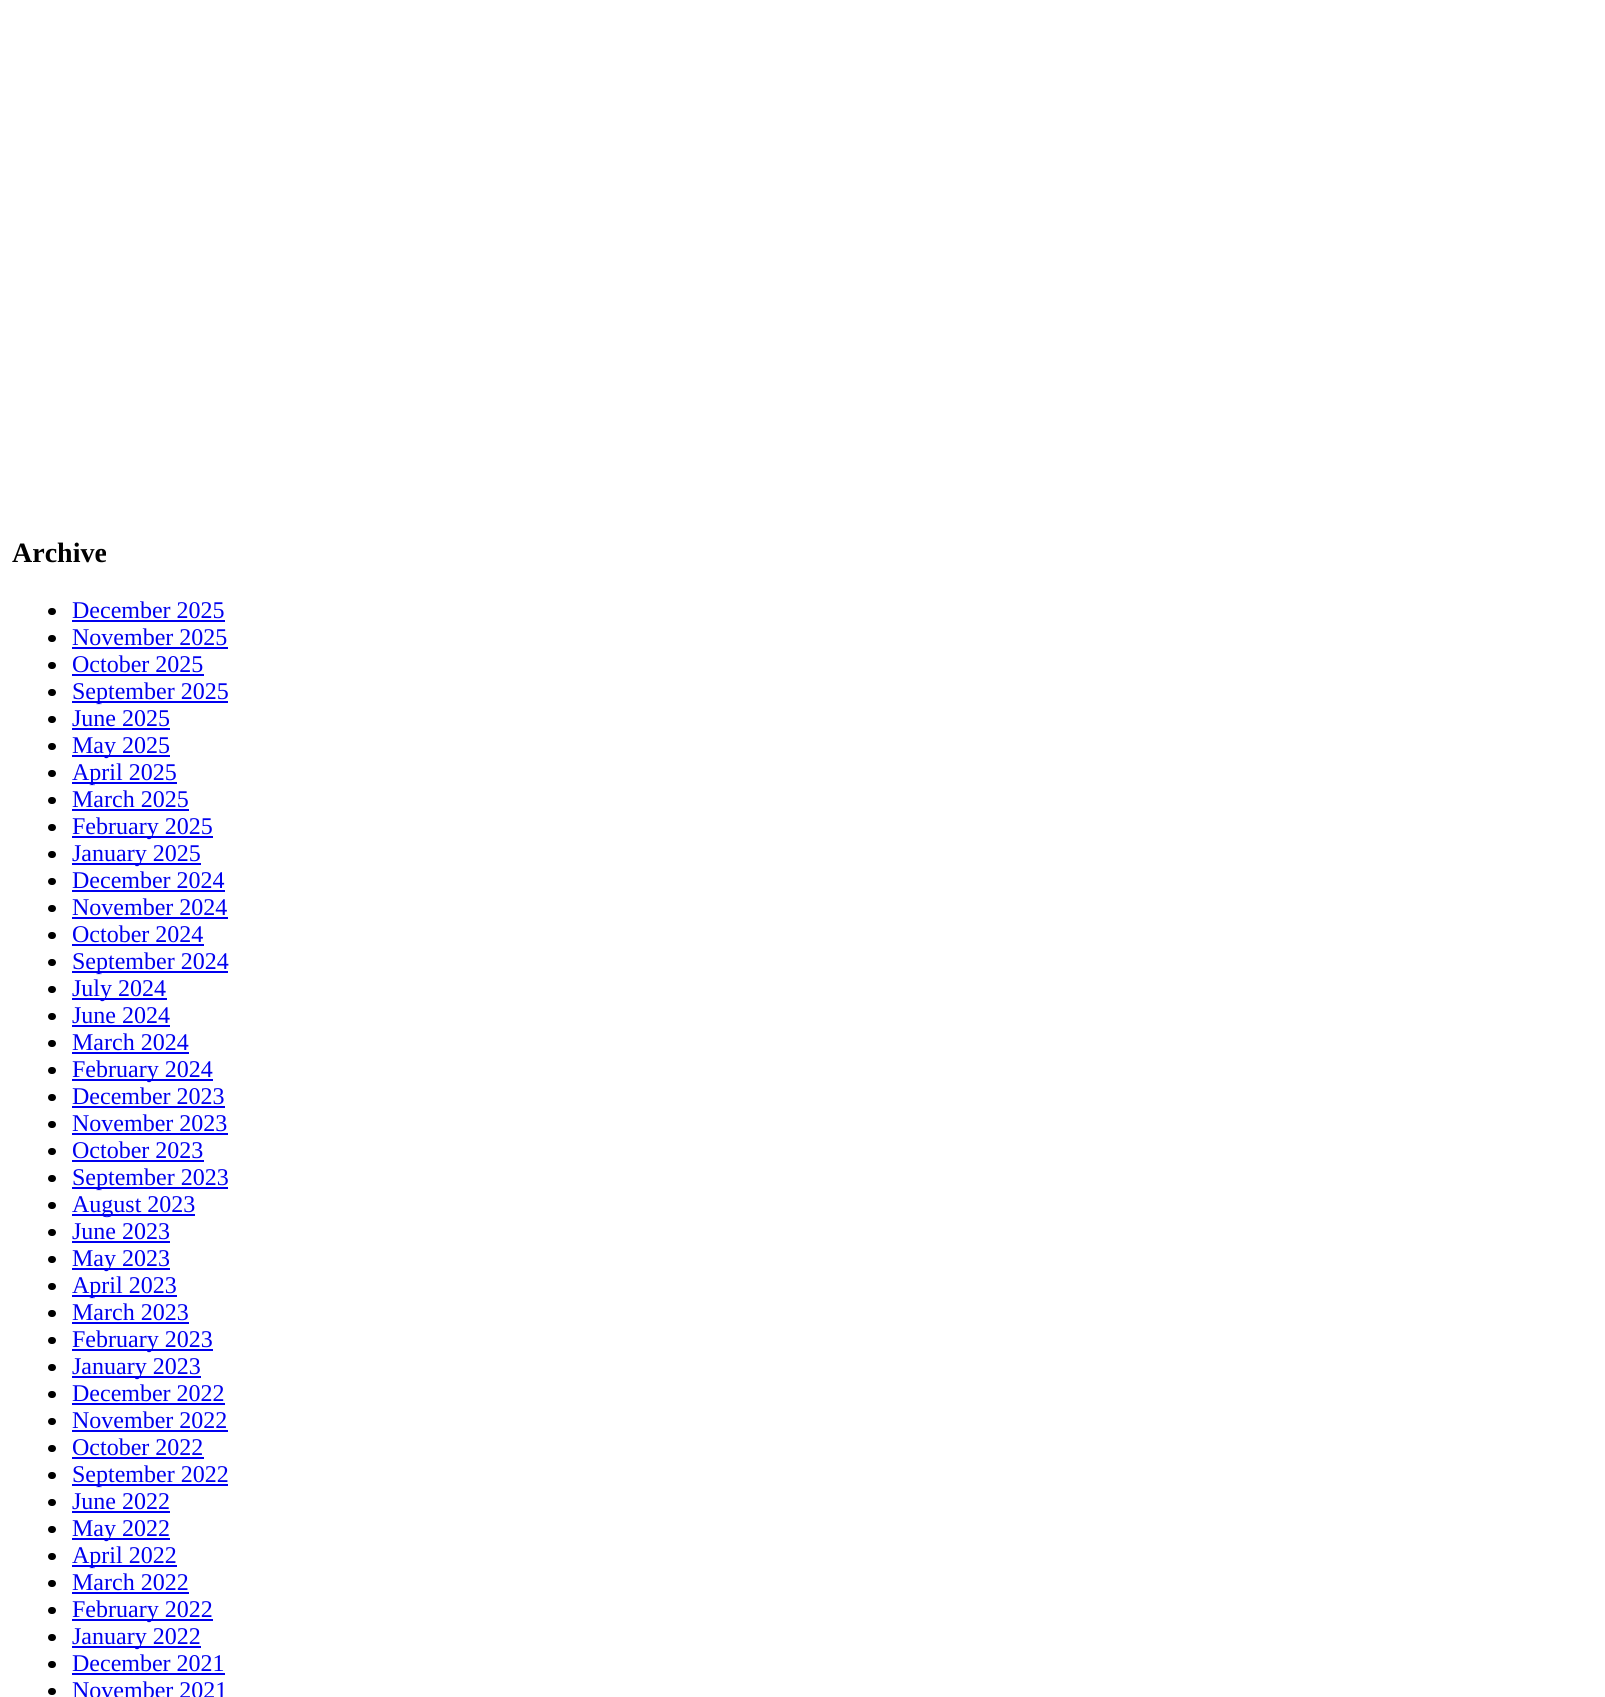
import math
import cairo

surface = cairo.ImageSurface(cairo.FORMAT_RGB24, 1605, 1697)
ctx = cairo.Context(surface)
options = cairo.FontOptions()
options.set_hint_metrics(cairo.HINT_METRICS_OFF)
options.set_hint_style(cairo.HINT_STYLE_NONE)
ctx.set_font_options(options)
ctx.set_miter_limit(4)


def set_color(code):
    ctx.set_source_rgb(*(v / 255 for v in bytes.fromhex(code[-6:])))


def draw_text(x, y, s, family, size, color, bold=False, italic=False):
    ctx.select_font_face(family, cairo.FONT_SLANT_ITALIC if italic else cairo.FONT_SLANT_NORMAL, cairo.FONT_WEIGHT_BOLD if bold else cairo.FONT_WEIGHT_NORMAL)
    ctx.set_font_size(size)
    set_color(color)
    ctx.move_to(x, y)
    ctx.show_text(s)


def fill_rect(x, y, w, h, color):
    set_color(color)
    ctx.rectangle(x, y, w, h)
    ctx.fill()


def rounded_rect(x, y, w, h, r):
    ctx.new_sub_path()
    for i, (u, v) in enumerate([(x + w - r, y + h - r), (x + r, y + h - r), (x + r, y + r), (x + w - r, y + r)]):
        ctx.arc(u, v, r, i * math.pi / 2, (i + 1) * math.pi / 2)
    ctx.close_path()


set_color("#ffffff")
ctx.paint()
draw_text(12, 562, "Archive", "Liberation Serif", 28, "#000000", bold=True)
rounded_rect(48, 608, 8, 7, 3.5)
ctx.fill()
draw_text(72, 618, "December 2025", "Liberation Serif", 24, "#0000ee")
fill_rect(72, 620, 153, 2, "#0000ee")
set_color("#000000")
rounded_rect(48, 635, 8, 7, 3.5)
ctx.fill()
draw_text(72, 645, "November 2025", "Liberation Serif", 24, "#0000ee")
fill_rect(72, 647, 156, 2, "#0000ee")
set_color("#000000")
rounded_rect(48, 662, 8, 7, 3.5)
ctx.fill()
draw_text(72, 672, "October 2025", "Liberation Serif", 24, "#0000ee")
fill_rect(72, 674, 132, 2, "#0000ee")
set_color("#000000")
rounded_rect(48, 689, 8, 7, 3.5)
ctx.fill()
fill_rect(72, 701, 156, 2, "#0000ee")
draw_text(72, 699, "September 2025", "Liberation Serif", 24, "#0000ee")
set_color("#000000")
rounded_rect(48, 716, 8, 7, 3.5)
ctx.fill()
draw_text(72, 726, "June 2025", "Liberation Serif", 24, "#0000ee")
fill_rect(72, 728, 98, 2, "#0000ee")
set_color("#000000")
rounded_rect(48, 743, 8, 7, 3.5)
ctx.fill()
fill_rect(72, 755, 98, 2, "#0000ee")
draw_text(72, 753, "May 2025", "Liberation Serif", 24, "#0000ee")
set_color("#000000")
rounded_rect(48, 770, 8, 7, 3.5)
ctx.fill()
fill_rect(72, 782, 105, 2, "#0000ee")
draw_text(72, 780, "April 2025", "Liberation Serif", 24, "#0000ee")
set_color("#000000")
rounded_rect(48, 797, 8, 7, 3.5)
ctx.fill()
draw_text(72, 807, "March 2025", "Liberation Serif", 24, "#0000ee")
fill_rect(72, 809, 117, 2, "#0000ee")
set_color("#000000")
rounded_rect(48, 824, 8, 7, 3.5)
ctx.fill()
fill_rect(72, 836, 141, 2, "#0000ee")
draw_text(72, 834, "February 2025", "Liberation Serif", 24, "#0000ee")
set_color("#000000")
rounded_rect(48, 851, 8, 7, 3.5)
ctx.fill()
fill_rect(72, 863, 129, 2, "#0000ee")
draw_text(72, 861, "January 2025", "Liberation Serif", 24, "#0000ee")
set_color("#000000")
rounded_rect(48, 878, 8, 7, 3.5)
ctx.fill()
draw_text(72, 888, "December 2024", "Liberation Serif", 24, "#0000ee")
fill_rect(72, 890, 153, 2, "#0000ee")
set_color("#000000")
rounded_rect(48, 905, 8, 7, 3.5)
ctx.fill()
draw_text(72, 915, "November 2024", "Liberation Serif", 24, "#0000ee")
fill_rect(72, 917, 156, 2, "#0000ee")
set_color("#000000")
rounded_rect(48, 932, 8, 7, 3.5)
ctx.fill()
draw_text(72, 942, "October 2024", "Liberation Serif", 24, "#0000ee")
fill_rect(72, 944, 132, 2, "#0000ee")
set_color("#000000")
rounded_rect(48, 959, 8, 7, 3.5)
ctx.fill()
fill_rect(72, 971, 156, 2, "#0000ee")
draw_text(72, 969, "September 2024", "Liberation Serif", 24, "#0000ee")
set_color("#000000")
rounded_rect(48, 986, 8, 7, 3.5)
ctx.fill()
fill_rect(72, 998, 95, 2, "#0000ee")
draw_text(72, 996, "July 2024", "Liberation Serif", 24, "#0000ee")
set_color("#000000")
rounded_rect(48, 1013, 8, 7, 3.5)
ctx.fill()
draw_text(72, 1023, "June 2024", "Liberation Serif", 24, "#0000ee")
fill_rect(72, 1025, 98, 2, "#0000ee")
set_color("#000000")
rounded_rect(48, 1040, 8, 7, 3.5)
ctx.fill()
draw_text(72, 1050, "March 2024", "Liberation Serif", 24, "#0000ee")
fill_rect(72, 1052, 117, 2, "#0000ee")
set_color("#000000")
rounded_rect(48, 1067, 8, 7, 3.5)
ctx.fill()
fill_rect(72, 1079, 141, 2, "#0000ee")
draw_text(72, 1077, "February 2024", "Liberation Serif", 24, "#0000ee")
set_color("#000000")
rounded_rect(48, 1094, 8, 7, 3.5)
ctx.fill()
draw_text(72, 1104, "December 2023", "Liberation Serif", 24, "#0000ee")
fill_rect(72, 1106, 153, 2, "#0000ee")
set_color("#000000")
rounded_rect(48, 1121, 8, 7, 3.5)
ctx.fill()
draw_text(72, 1131, "November 2023", "Liberation Serif", 24, "#0000ee")
fill_rect(72, 1133, 156, 2, "#0000ee")
set_color("#000000")
rounded_rect(48, 1148, 8, 7, 3.5)
ctx.fill()
draw_text(72, 1158, "October 2023", "Liberation Serif", 24, "#0000ee")
fill_rect(72, 1160, 132, 2, "#0000ee")
set_color("#000000")
rounded_rect(48, 1175, 8, 7, 3.5)
ctx.fill()
fill_rect(72, 1187, 156, 2, "#0000ee")
draw_text(72, 1185, "September 2023", "Liberation Serif", 24, "#0000ee")
set_color("#000000")
rounded_rect(48, 1202, 8, 7, 3.5)
ctx.fill()
fill_rect(72, 1214, 123, 2, "#0000ee")
draw_text(72, 1212, "August 2023", "Liberation Serif", 24, "#0000ee")
set_color("#000000")
rounded_rect(48, 1229, 8, 7, 3.5)
ctx.fill()
draw_text(72, 1239, "June 2023", "Liberation Serif", 24, "#0000ee")
fill_rect(72, 1241, 98, 2, "#0000ee")
set_color("#000000")
rounded_rect(48, 1256, 8, 7, 3.5)
ctx.fill()
fill_rect(72, 1268, 98, 2, "#0000ee")
draw_text(72, 1266, "May 2023", "Liberation Serif", 24, "#0000ee")
set_color("#000000")
rounded_rect(48, 1283, 8, 7, 3.5)
ctx.fill()
fill_rect(72, 1295, 105, 2, "#0000ee")
draw_text(72, 1293, "April 2023", "Liberation Serif", 24, "#0000ee")
set_color("#000000")
rounded_rect(48, 1310, 8, 7, 3.5)
ctx.fill()
draw_text(72, 1320, "March 2023", "Liberation Serif", 24, "#0000ee")
fill_rect(72, 1322, 117, 2, "#0000ee")
set_color("#000000")
rounded_rect(48, 1337, 8, 7, 3.5)
ctx.fill()
fill_rect(72, 1349, 141, 2, "#0000ee")
draw_text(72, 1347, "February 2023", "Liberation Serif", 24, "#0000ee")
set_color("#000000")
rounded_rect(48, 1364, 8, 7, 3.5)
ctx.fill()
fill_rect(72, 1376, 129, 2, "#0000ee")
draw_text(72, 1374, "January 2023", "Liberation Serif", 24, "#0000ee")
set_color("#000000")
rounded_rect(48, 1391, 8, 7, 3.5)
ctx.fill()
draw_text(72, 1401, "December 2022", "Liberation Serif", 24, "#0000ee")
fill_rect(72, 1403, 153, 2, "#0000ee")
set_color("#000000")
rounded_rect(48, 1418, 8, 7, 3.5)
ctx.fill()
draw_text(72, 1428, "November 2022", "Liberation Serif", 24, "#0000ee")
fill_rect(72, 1430, 156, 2, "#0000ee")
set_color("#000000")
rounded_rect(48, 1445, 8, 7, 3.5)
ctx.fill()
draw_text(72, 1455, "October 2022", "Liberation Serif", 24, "#0000ee")
fill_rect(72, 1457, 132, 2, "#0000ee")
set_color("#000000")
rounded_rect(48, 1472, 8, 7, 3.5)
ctx.fill()
fill_rect(72, 1484, 156, 2, "#0000ee")
draw_text(72, 1482, "September 2022", "Liberation Serif", 24, "#0000ee")
set_color("#000000")
rounded_rect(48, 1499, 8, 7, 3.5)
ctx.fill()
draw_text(72, 1509, "June 2022", "Liberation Serif", 24, "#0000ee")
fill_rect(72, 1511, 98, 2, "#0000ee")
set_color("#000000")
rounded_rect(48, 1526, 8, 7, 3.5)
ctx.fill()
fill_rect(72, 1538, 98, 2, "#0000ee")
draw_text(72, 1536, "May 2022", "Liberation Serif", 24, "#0000ee")
set_color("#000000")
rounded_rect(48, 1553, 8, 7, 3.5)
ctx.fill()
fill_rect(72, 1565, 105, 2, "#0000ee")
draw_text(72, 1563, "April 2022", "Liberation Serif", 24, "#0000ee")
set_color("#000000")
rounded_rect(48, 1580, 8, 7, 3.5)
ctx.fill()
draw_text(72, 1590, "March 2022", "Liberation Serif", 24, "#0000ee")
fill_rect(72, 1592, 117, 2, "#0000ee")
set_color("#000000")
rounded_rect(48, 1607, 8, 7, 3.5)
ctx.fill()
fill_rect(72, 1619, 141, 2, "#0000ee")
draw_text(72, 1617, "February 2022", "Liberation Serif", 24, "#0000ee")
set_color("#000000")
rounded_rect(48, 1634, 8, 7, 3.5)
ctx.fill()
fill_rect(72, 1646, 129, 2, "#0000ee")
draw_text(72, 1644, "January 2022", "Liberation Serif", 24, "#0000ee")
set_color("#000000")
rounded_rect(48, 1661, 8, 7, 3.5)
ctx.fill()
draw_text(72, 1671, "December 2021", "Liberation Serif", 24, "#0000ee")
fill_rect(72, 1673, 153, 2, "#0000ee")
set_color("#000000")
rounded_rect(48, 1688, 8, 7, 3.5)
ctx.fill()
draw_text(72, 1698, "November 2021", "Liberation Serif", 24, "#0000ee")
surface.write_to_png("output.png")
